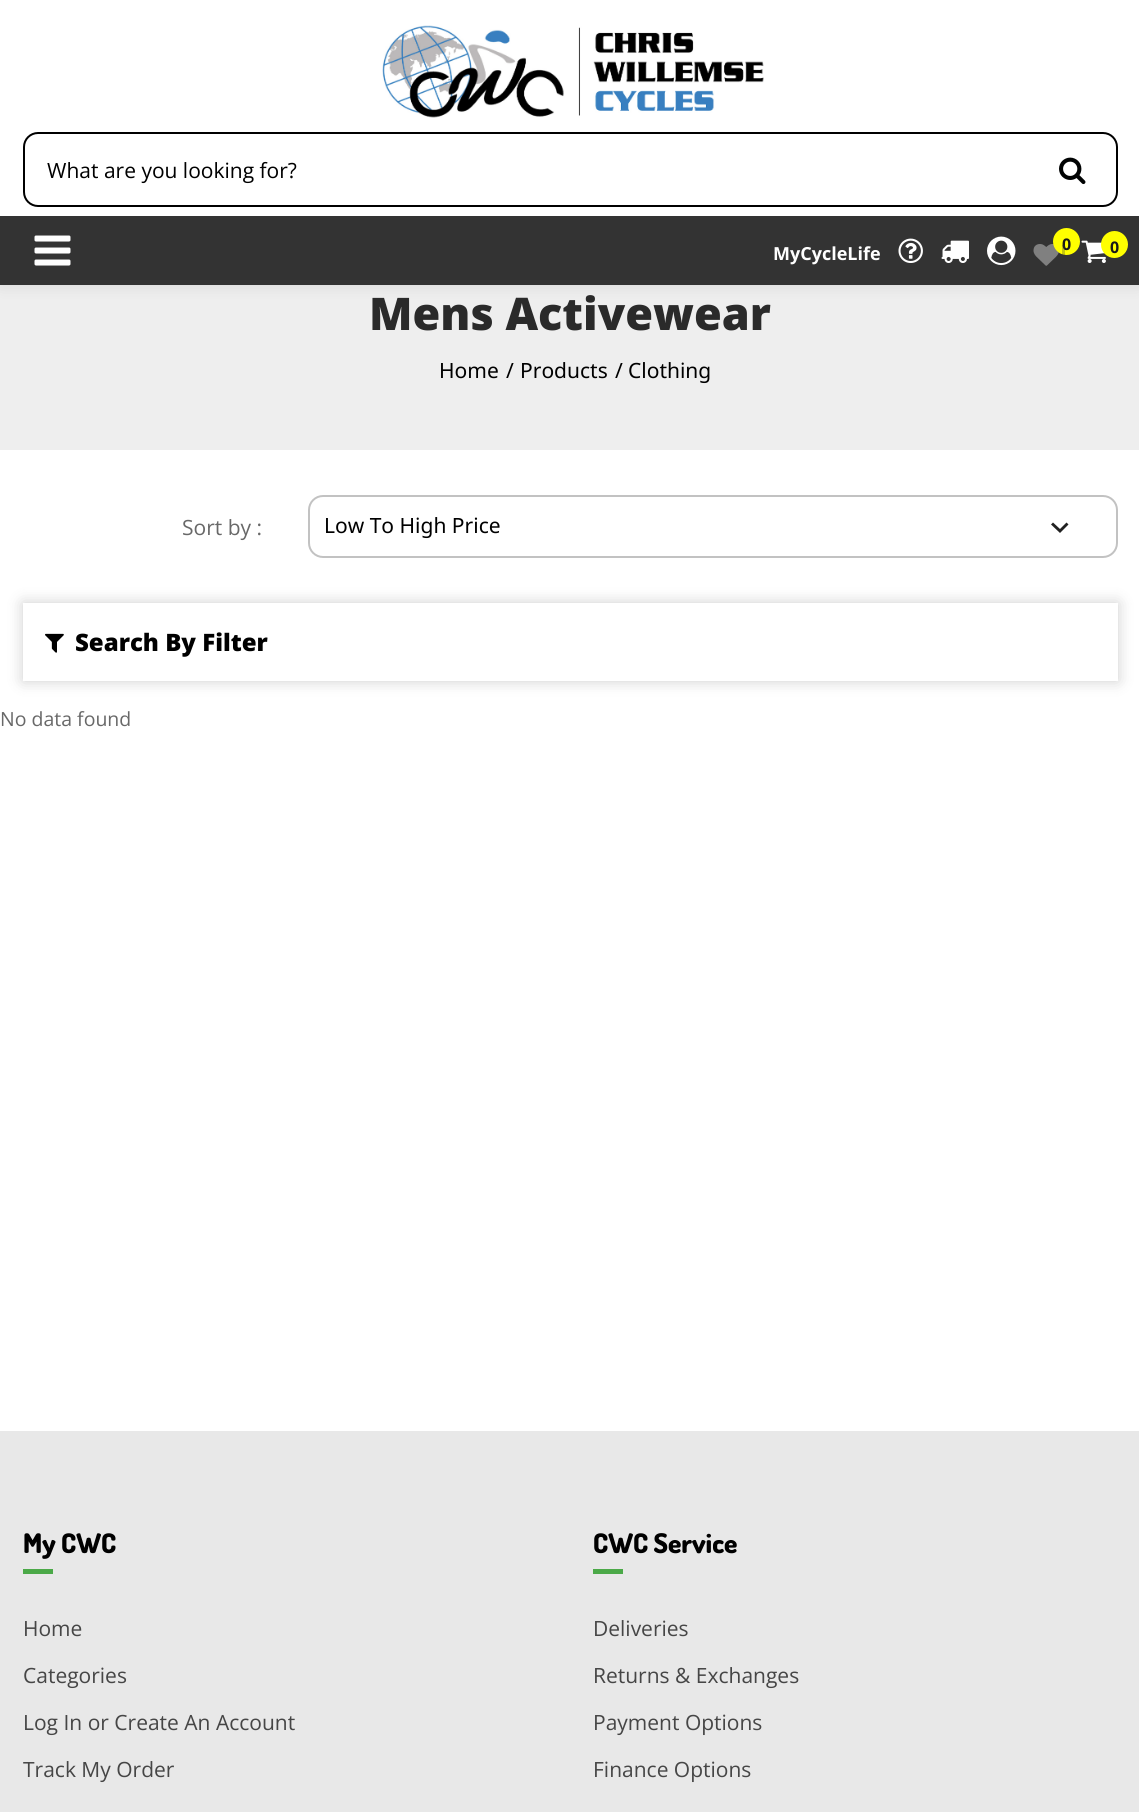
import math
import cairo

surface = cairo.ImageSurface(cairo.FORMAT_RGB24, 1139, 1812)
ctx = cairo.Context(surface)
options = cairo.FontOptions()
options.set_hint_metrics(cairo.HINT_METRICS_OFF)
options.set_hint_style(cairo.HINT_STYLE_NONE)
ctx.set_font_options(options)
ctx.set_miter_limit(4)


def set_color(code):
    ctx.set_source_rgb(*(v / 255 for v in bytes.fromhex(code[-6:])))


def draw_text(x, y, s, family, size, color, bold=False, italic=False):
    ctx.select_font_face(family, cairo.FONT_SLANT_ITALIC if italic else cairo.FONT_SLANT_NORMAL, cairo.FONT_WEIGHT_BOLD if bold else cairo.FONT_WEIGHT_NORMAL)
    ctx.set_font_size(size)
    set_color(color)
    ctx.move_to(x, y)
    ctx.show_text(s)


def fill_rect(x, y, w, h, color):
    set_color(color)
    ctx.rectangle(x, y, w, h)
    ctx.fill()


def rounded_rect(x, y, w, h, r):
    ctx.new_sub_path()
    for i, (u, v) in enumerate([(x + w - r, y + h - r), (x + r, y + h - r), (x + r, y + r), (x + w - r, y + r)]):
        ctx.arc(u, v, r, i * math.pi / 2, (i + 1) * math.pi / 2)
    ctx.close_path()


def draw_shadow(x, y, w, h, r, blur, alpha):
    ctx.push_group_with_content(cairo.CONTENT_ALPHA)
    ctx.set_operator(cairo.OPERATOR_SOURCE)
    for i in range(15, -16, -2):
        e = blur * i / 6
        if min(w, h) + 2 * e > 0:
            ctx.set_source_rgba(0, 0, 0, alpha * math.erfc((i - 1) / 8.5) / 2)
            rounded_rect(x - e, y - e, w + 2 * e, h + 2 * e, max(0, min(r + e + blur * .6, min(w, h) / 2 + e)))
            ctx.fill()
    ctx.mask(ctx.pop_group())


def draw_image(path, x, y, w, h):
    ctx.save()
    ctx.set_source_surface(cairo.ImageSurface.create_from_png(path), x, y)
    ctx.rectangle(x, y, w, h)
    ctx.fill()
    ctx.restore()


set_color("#ffffff")
ctx.paint()
fill_rect(0, 285, 1139, 165, "#eeeeee")
set_color("#000000")
draw_shadow(0, 0, 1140, 285, 0, 7.5, 0.1)
fill_rect(0, 0, 1139, 216, "#ffffff")
draw_image("assets/img1.png", 382, 25, 382, 93)
rounded_rect(24, 133, 1093, 73, 14)
set_color("#000000")
ctx.stroke()
draw_text(47, 178, "What are you looking for?", "Open Sans", 21, "#000000")
draw_image("assets/img2.png", 1059, 157, 27, 28)
fill_rect(0, 216, 1139, 69, "#333333")
draw_image("assets/img3.png", 34, 235, 37, 31)
draw_text(773, 260, "MyCycleLife", "Open Sans", 18, "#fefefe", bold=True)
draw_image("assets/img4.png", 898, 238, 25, 25)
draw_image("assets/img5.png", 941, 240, 28, 23)
draw_image("assets/img6.png", 987, 236, 29, 30)
draw_image("assets/img7.png", 1033, 244, 26, 22)
set_color("#ffff00")
ctx.arc(1066.5, 241.5, 13.5, 0, 2 * math.pi)
ctx.fill()
draw_text(1062, 250, "0", "Open Sans", 16, "#181818", bold=True)
ctx.set_source_rgba(0.2, 0.2, 0.2, 0.28)
ctx.rectangle(1062, 245, 3, 16)
ctx.fill()
draw_image("assets/img8.png", 1081, 240, 25, 23)
set_color("#ffff00")
ctx.arc(1114.5, 244.5, 13.5, 0, 2 * math.pi)
ctx.fill()
draw_text(1110, 253, "0", "Open Sans", 16, "#181818", bold=True)
draw_text(369, 330, "Mens Activewear", "Open Sans ExtraBold", 45, "#2a2a2a")
draw_text(439, 378, "Home", "Noto Sans", 21, "#000000")
draw_text(506, 378, "/", "Noto Sans", 21, "#000000")
draw_text(520, 378, "Products", "Noto Sans", 21, "#000000")
draw_text(615, 378, "/", "Noto Sans", 21, "#000000")
draw_text(628, 378, "Clothing", "Noto Sans", 21, "#000000")
draw_text(182, 535, "Sort by :", "Open Sans", 21, "#686868")
set_color("#212121")
ctx.new_path()
ctx.move_to(1053, 522.5)
ctx.line_to(1051, 524.5)
ctx.line_to(1060, 533)
ctx.line_to(1068.5, 524.5)
ctx.line_to(1066.5, 522.5)
ctx.line_to(1060, 529)
ctx.close_path()
ctx.fill()
rounded_rect(309, 496, 808, 61, 14)
set_color("#c2c2c2")
ctx.stroke()
draw_text(324, 533, "Low To High Price", "Noto Sans", 21, "#000000")
set_color("#000000")
draw_shadow(23, 603, 1095, 78, 0, 7.5, 0.2)
fill_rect(23, 603, 1095, 78, "#ffffff")
draw_image("assets/img9.png", 45, 633, 19, 20)
draw_text(75, 651, "Search By Filter", "Open Sans ExtraBold", 24, "#000000")
draw_text(0, 726, "No data found", "Open Sans", 19.5, "#686868")
fill_rect(0, 1431, 1139, 381, "#e8e8e8")
draw_text(23, 1553, "My CWC", "Dosis ExtraBold", 27, "#000000")
fill_rect(23, 1569, 30, 5, "#4ba948")
draw_text(23, 1636, "Home", "Open Sans", 21, "#464646")
draw_text(23, 1683, "Categories", "Open Sans", 21, "#464646")
draw_text(23, 1730, "Log In or Create An Account", "Open Sans", 21, "#464646")
draw_text(23, 1777, "Track My Order", "Open Sans", 21, "#464646")
draw_text(593, 1553, "CWC Service", "Dosis ExtraBold", 27, "#000000")
fill_rect(593, 1569, 30, 5, "#4ba948")
draw_text(593, 1636, "Deliveries", "Open Sans", 21, "#464646")
draw_text(593, 1683, "Returns & Exchanges", "Open Sans", 21, "#464646")
draw_text(593, 1730, "Payment Options", "Open Sans", 21, "#464646")
draw_text(593, 1777, "Finance Options", "Open Sans", 21, "#464646")
surface.write_to_png("output.png")
